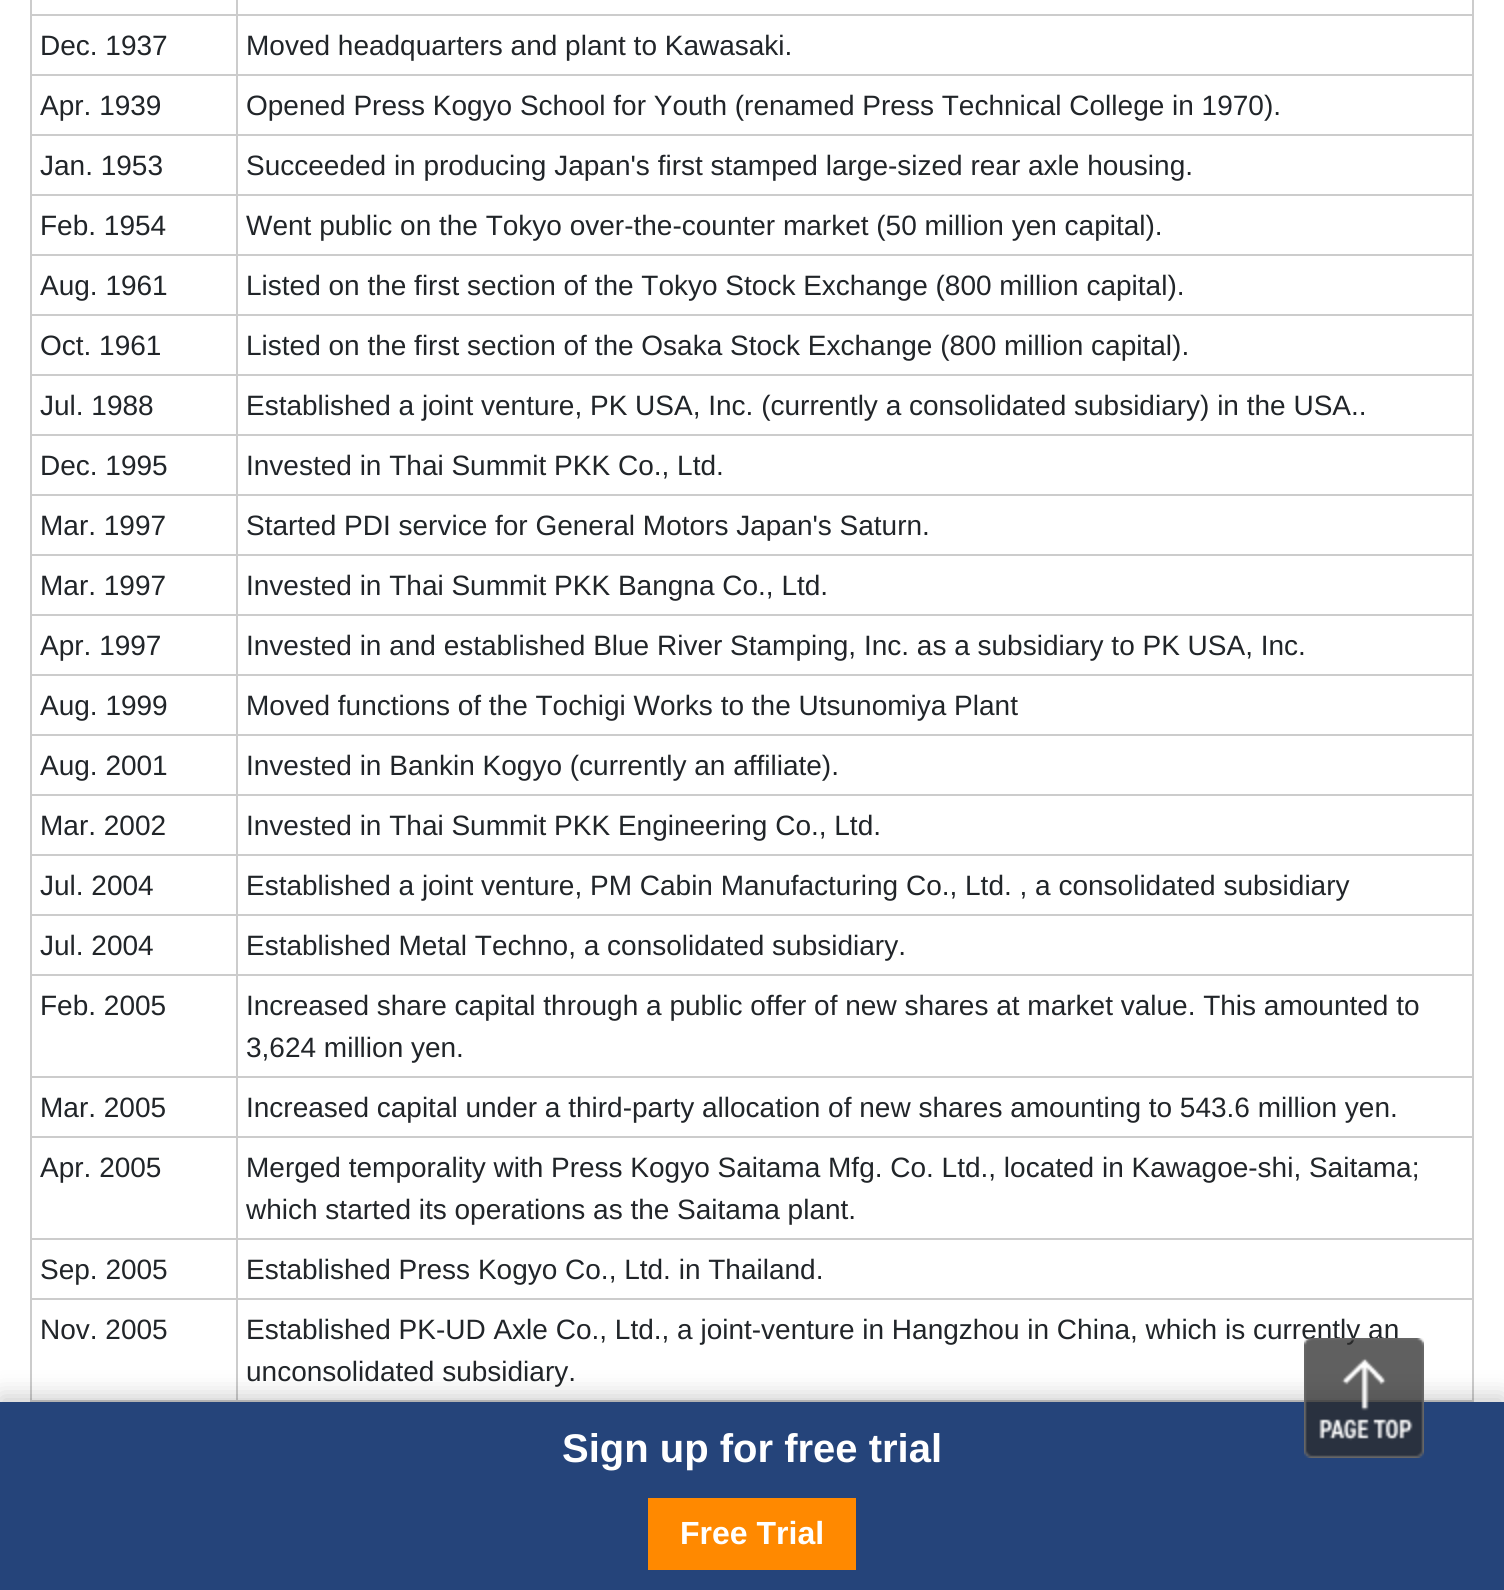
import math
import cairo

surface = cairo.ImageSurface(cairo.FORMAT_RGB24, 1504, 1590)
ctx = cairo.Context(surface)
options = cairo.FontOptions()
options.set_hint_metrics(cairo.HINT_METRICS_OFF)
options.set_hint_style(cairo.HINT_STYLE_NONE)
ctx.set_font_options(options)
ctx.set_miter_limit(4)


def set_color(code):
    ctx.set_source_rgb(*(v / 255 for v in bytes.fromhex(code[-6:])))


def draw_text(x, y, s, family, size, color, bold=False, italic=False):
    ctx.select_font_face(family, cairo.FONT_SLANT_ITALIC if italic else cairo.FONT_SLANT_NORMAL, cairo.FONT_WEIGHT_BOLD if bold else cairo.FONT_WEIGHT_NORMAL)
    ctx.set_font_size(size)
    set_color(color)
    ctx.move_to(x, y)
    ctx.show_text(s)


def fill_rect(x, y, w, h, color):
    set_color(color)
    ctx.rectangle(x, y, w, h)
    ctx.fill()


def rounded_rect(x, y, w, h, r):
    ctx.new_sub_path()
    for i, (u, v) in enumerate([(x + w - r, y + h - r), (x + r, y + h - r), (x + r, y + r), (x + w - r, y + r)]):
        ctx.arc(u, v, r, i * math.pi / 2, (i + 1) * math.pi / 2)
    ctx.close_path()


def draw_shadow(x, y, w, h, r, blur, alpha):
    ctx.push_group_with_content(cairo.CONTENT_ALPHA)
    ctx.set_operator(cairo.OPERATOR_SOURCE)
    for i in range(15, -16, -2):
        e = blur * i / 6
        if min(w, h) + 2 * e > 0:
            ctx.set_source_rgba(0, 0, 0, alpha * math.erfc((i - 1) / 8.5) / 2)
            rounded_rect(x - e, y - e, w + 2 * e, h + 2 * e, max(0, min(r + e + blur * .6, min(w, h) / 2 + e)))
            ctx.fill()
    ctx.mask(ctx.pop_group())


def draw_image(path, x, y, w, h):
    ctx.save()
    ctx.set_source_surface(cairo.ImageSurface.create_from_png(path), x, y)
    ctx.rectangle(x, y, w, h)
    ctx.fill()
    ctx.restore()


set_color("#ffffff")
ctx.paint()
fill_rect(1472, 0, 2, 1400, "#cccccc")
fill_rect(30, 0, 2, 1400, "#cccccc")
fill_rect(236, 14, 1238, 2, "#cccccc")
fill_rect(236, 74, 1238, 2, "#cccccc")
fill_rect(236, 134, 1238, 2, "#cccccc")
fill_rect(236, 194, 1238, 2, "#cccccc")
fill_rect(236, 254, 1238, 2, "#cccccc")
fill_rect(236, 314, 1238, 2, "#cccccc")
fill_rect(236, 374, 1238, 2, "#cccccc")
fill_rect(236, 434, 1238, 2, "#cccccc")
fill_rect(236, 494, 1238, 2, "#cccccc")
fill_rect(236, 554, 1238, 2, "#cccccc")
fill_rect(236, 614, 1238, 2, "#cccccc")
fill_rect(236, 674, 1238, 2, "#cccccc")
fill_rect(236, 734, 1238, 2, "#cccccc")
fill_rect(236, 794, 1238, 2, "#cccccc")
fill_rect(236, 854, 1238, 2, "#cccccc")
fill_rect(236, 914, 1238, 2, "#cccccc")
fill_rect(236, 974, 1238, 2, "#cccccc")
fill_rect(236, 1076, 1238, 2, "#cccccc")
fill_rect(236, 1136, 1238, 2, "#cccccc")
fill_rect(236, 1238, 1238, 2, "#cccccc")
fill_rect(236, 1298, 1238, 2, "#cccccc")
fill_rect(30, 1400, 1444, 2, "#cccccc")
fill_rect(236, 1298, 2, 104, "#cccccc")
fill_rect(30, 1298, 208, 2, "#cccccc")
fill_rect(236, 1238, 2, 62, "#cccccc")
fill_rect(30, 1238, 208, 2, "#cccccc")
fill_rect(236, 1136, 2, 104, "#cccccc")
fill_rect(30, 1136, 208, 2, "#cccccc")
fill_rect(236, 1076, 2, 62, "#cccccc")
fill_rect(30, 1076, 208, 2, "#cccccc")
fill_rect(236, 974, 2, 104, "#cccccc")
fill_rect(30, 974, 208, 2, "#cccccc")
fill_rect(236, 914, 2, 62, "#cccccc")
fill_rect(30, 914, 208, 2, "#cccccc")
fill_rect(236, 854, 2, 62, "#cccccc")
fill_rect(30, 854, 208, 2, "#cccccc")
fill_rect(236, 794, 2, 62, "#cccccc")
fill_rect(30, 794, 208, 2, "#cccccc")
fill_rect(236, 734, 2, 62, "#cccccc")
fill_rect(30, 734, 208, 2, "#cccccc")
fill_rect(236, 674, 2, 62, "#cccccc")
fill_rect(30, 674, 208, 2, "#cccccc")
fill_rect(236, 614, 2, 62, "#cccccc")
fill_rect(30, 614, 208, 2, "#cccccc")
fill_rect(236, 554, 2, 62, "#cccccc")
fill_rect(30, 554, 208, 2, "#cccccc")
fill_rect(236, 494, 2, 62, "#cccccc")
fill_rect(30, 494, 208, 2, "#cccccc")
fill_rect(236, 434, 2, 62, "#cccccc")
fill_rect(30, 434, 208, 2, "#cccccc")
fill_rect(236, 374, 2, 62, "#cccccc")
fill_rect(30, 374, 208, 2, "#cccccc")
fill_rect(236, 314, 2, 62, "#cccccc")
fill_rect(30, 314, 208, 2, "#cccccc")
fill_rect(236, 254, 2, 62, "#cccccc")
fill_rect(30, 254, 208, 2, "#cccccc")
fill_rect(236, 194, 2, 62, "#cccccc")
fill_rect(30, 194, 208, 2, "#cccccc")
fill_rect(236, 134, 2, 62, "#cccccc")
fill_rect(30, 134, 208, 2, "#cccccc")
fill_rect(236, 74, 2, 62, "#cccccc")
fill_rect(30, 74, 208, 2, "#cccccc")
fill_rect(236, 14, 2, 62, "#cccccc")
fill_rect(30, 14, 208, 2, "#cccccc")
fill_rect(236, 0, 2, 16, "#cccccc")
draw_text(40, 55, "Dec. 1937", "Liberation Sans", 28, "#212529")
draw_text(246, 55, "Moved headquarters and plant to Kawasaki.", "Liberation Sans", 28, "#212529")
draw_text(40, 115, "Apr. 1939", "Liberation Sans", 28, "#212529")
draw_text(246, 115, "Opened Press Kogyo School for Youth (renamed Press Technical College in 1970).", "Liberation Sans", 28, "#212529")
draw_text(40, 175, "Jan. 1953", "Liberation Sans", 28, "#212529")
draw_text(246, 175, "Succeeded in producing Japan's first stamped large-sized rear axle housing.", "Liberation Sans", 28, "#212529")
draw_text(40, 235, "Feb. 1954", "Liberation Sans", 28, "#212529")
draw_text(246, 235, "Went public on the Tokyo over-the-counter market (50 million yen capital).", "Liberation Sans", 28, "#212529")
draw_text(40, 295, "Aug. 1961", "Liberation Sans", 28, "#212529")
draw_text(246, 295, "Listed on the first section of the Tokyo Stock Exchange (800 million capital).", "Liberation Sans", 28, "#212529")
draw_text(40, 355, "Oct. 1961", "Liberation Sans", 28, "#212529")
draw_text(246, 355, "Listed on the first section of the Osaka Stock Exchange (800 million capital).", "Liberation Sans", 28, "#212529")
draw_text(40, 415, "Jul. 1988", "Liberation Sans", 28, "#212529")
draw_text(246, 415, "Established a joint venture, PK USA, Inc. (currently a consolidated subsidiary) in the USA..", "Liberation Sans", 28, "#212529")
draw_text(40, 475, "Dec. 1995", "Liberation Sans", 28, "#212529")
draw_text(246, 475, "Invested in Thai Summit PKK Co., Ltd.", "Liberation Sans", 28, "#212529")
draw_text(40, 535, "Mar. 1997", "Liberation Sans", 28, "#212529")
draw_text(246, 535, "Started PDI service for General Motors Japan's Saturn.", "Liberation Sans", 28, "#212529")
draw_text(40, 595, "Mar. 1997", "Liberation Sans", 28, "#212529")
draw_text(246, 595, "Invested in Thai Summit PKK Bangna Co., Ltd.", "Liberation Sans", 28, "#212529")
draw_text(40, 655, "Apr. 1997", "Liberation Sans", 28, "#212529")
draw_text(246, 655, "Invested in and established Blue River Stamping, Inc. as a subsidiary to PK USA, Inc.", "Liberation Sans", 28, "#212529")
draw_text(40, 715, "Aug. 1999", "Liberation Sans", 28, "#212529")
draw_text(246, 715, "Moved functions of the Tochigi Works to the Utsunomiya Plant", "Liberation Sans", 28, "#212529")
draw_text(40, 775, "Aug. 2001", "Liberation Sans", 28, "#212529")
draw_text(246, 775, "Invested in Bankin Kogyo (currently an affiliate).", "Liberation Sans", 28, "#212529")
draw_text(40, 835, "Mar. 2002", "Liberation Sans", 28, "#212529")
draw_text(246, 835, "Invested in Thai Summit PKK Engineering Co., Ltd.", "Liberation Sans", 28, "#212529")
draw_text(40, 895, "Jul. 2004", "Liberation Sans", 28, "#212529")
draw_text(246, 895, "Established a joint venture, PM Cabin Manufacturing Co., Ltd. , a consolidated subsidiary", "Liberation Sans", 28, "#212529")
draw_text(40, 955, "Jul. 2004", "Liberation Sans", 28, "#212529")
draw_text(246, 955, "Established Metal Techno, a consolidated subsidiary.", "Liberation Sans", 28, "#212529")
draw_text(40, 1015, "Feb. 2005", "Liberation Sans", 28, "#212529")
draw_text(246, 1015, "Increased share capital through a public offer of new shares at market value. This amounted to", "Liberation Sans", 28, "#212529")
draw_text(246, 1057, "3,624 million yen.", "Liberation Sans", 28, "#212529")
draw_text(40, 1117, "Mar. 2005", "Liberation Sans", 28, "#212529")
draw_text(246, 1117, "Increased capital under a third-party allocation of new shares amounting to 543.6 million yen.", "Liberation Sans", 28, "#212529")
draw_text(40, 1177, "Apr. 2005", "Liberation Sans", 28, "#212529")
draw_text(246, 1177, "Merged temporality with Press Kogyo Saitama Mfg. Co. Ltd., located in Kawagoe-shi, Saitama;", "Liberation Sans", 28, "#212529")
draw_text(246, 1219, "which started its operations as the Saitama plant.", "Liberation Sans", 28, "#212529")
draw_text(40, 1279, "Sep. 2005", "Liberation Sans", 28, "#212529")
draw_text(246, 1279, "Established Press Kogyo Co., Ltd. in Thailand.", "Liberation Sans", 28, "#212529")
draw_text(40, 1339, "Nov. 2005", "Liberation Sans", 28, "#212529")
draw_text(246, 1339, "Established PK-UD Axle Co., Ltd., a joint-venture in Hangzhou in China, which is currently an", "Liberation Sans", 28, "#212529")
draw_text(246, 1381, "unconsolidated subsidiary.", "Liberation Sans", 28, "#212529")
set_color("#000000")
draw_shadow(0, 1396, 1504, 188, 0, 12, 0.2)
fill_rect(0, 1402, 1504, 188, "#25447a")
draw_image("assets/img1.png", 1304, 1338, 120, 120)
draw_text(562, 1462, "Sign up for free trial", "Liberation Sans", 40, "#ffffff", bold=True)
fill_rect(648, 1498, 208, 72, "#ff8900")
draw_text(680, 1544, "Free Trial", "Liberation Sans", 32, "#ffffff", bold=True)
surface.write_to_png("output.png")
